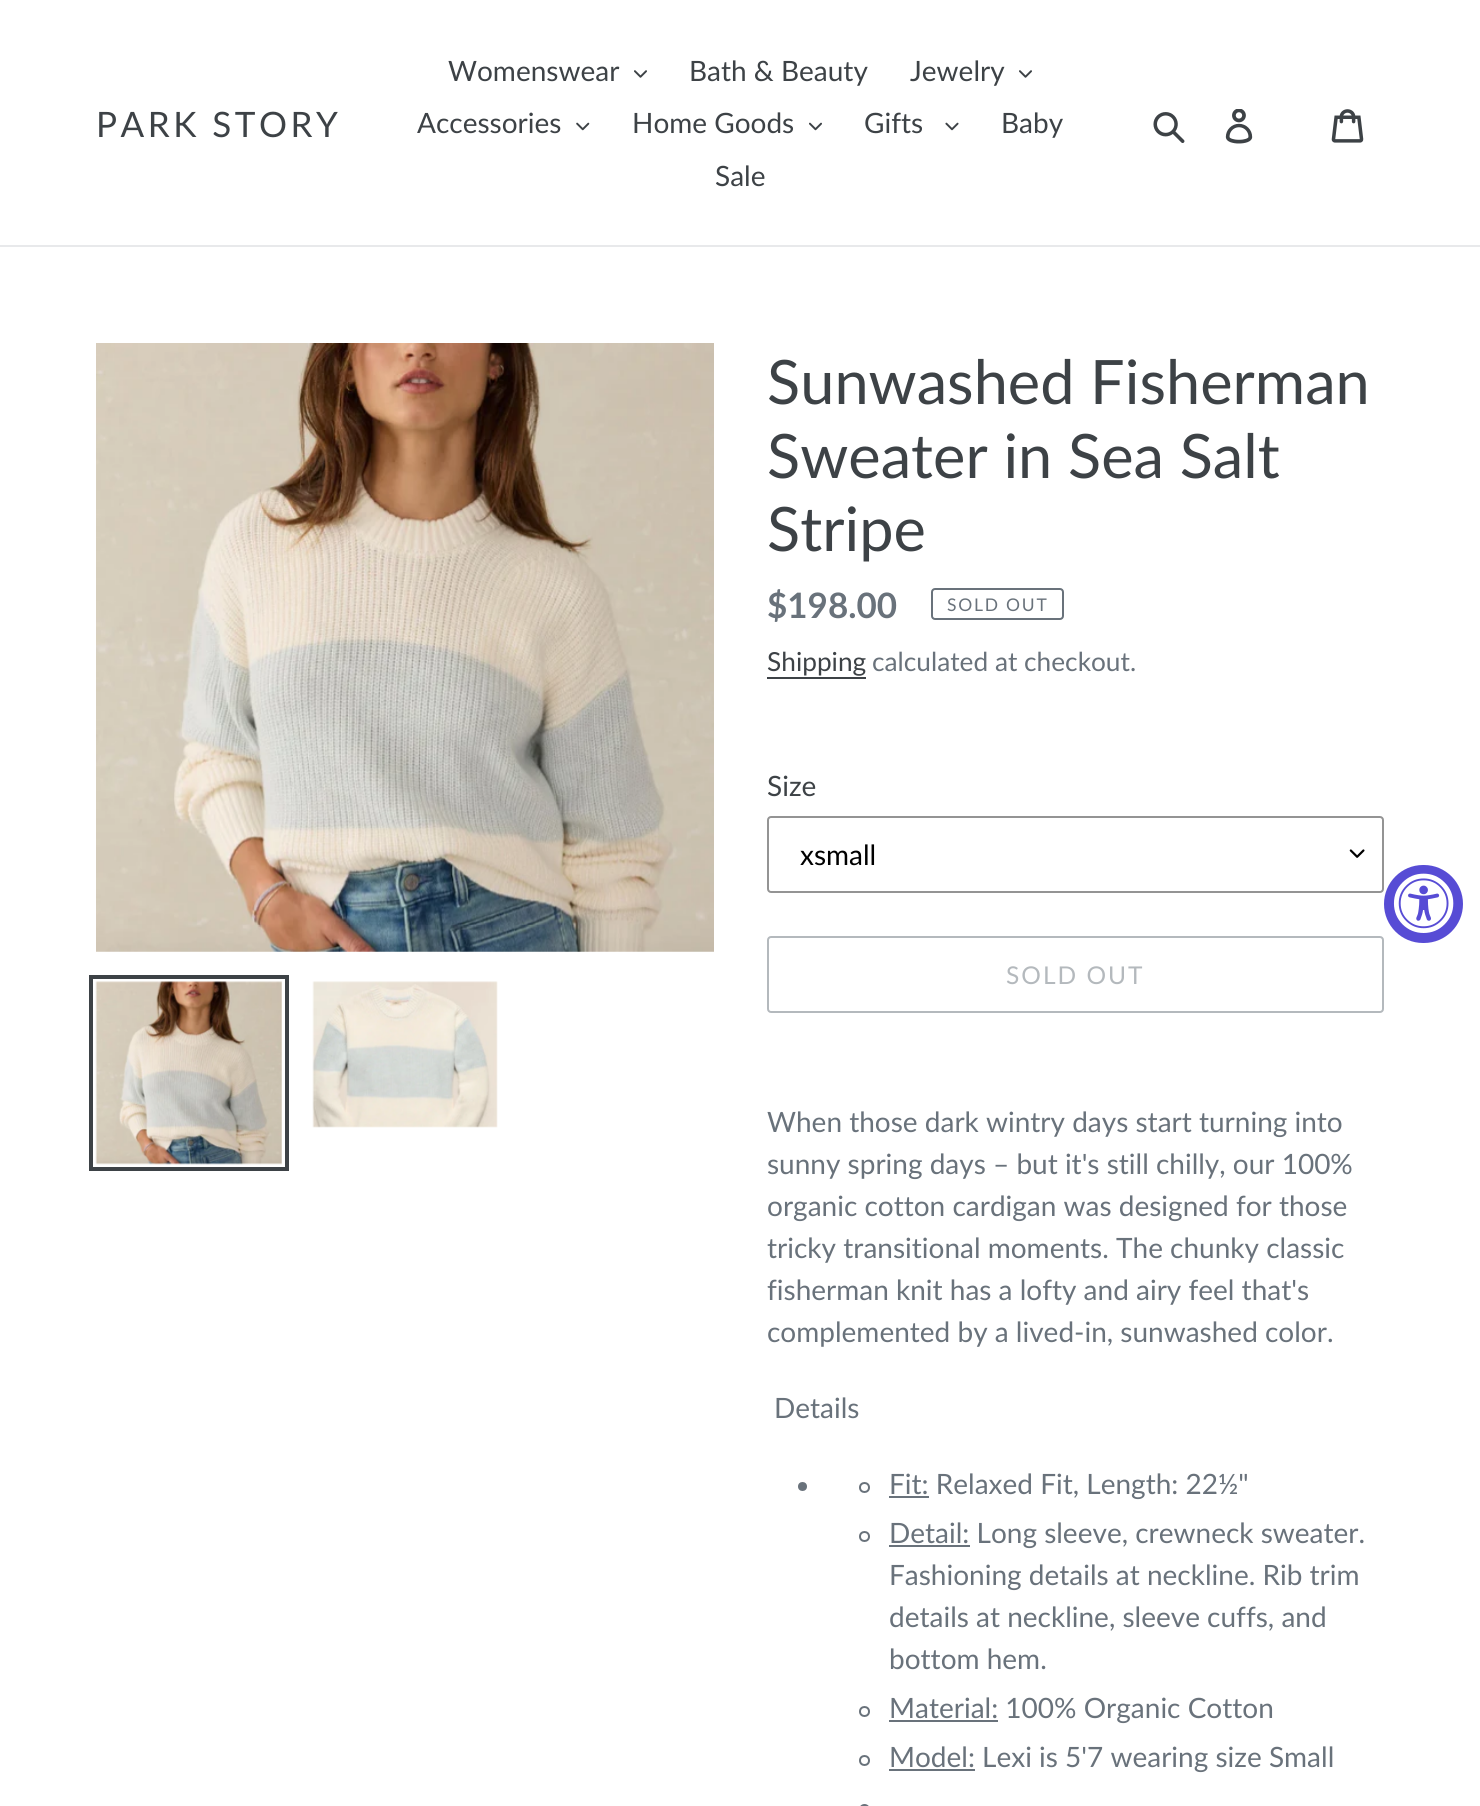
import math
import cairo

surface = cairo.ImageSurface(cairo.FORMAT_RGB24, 1480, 1806)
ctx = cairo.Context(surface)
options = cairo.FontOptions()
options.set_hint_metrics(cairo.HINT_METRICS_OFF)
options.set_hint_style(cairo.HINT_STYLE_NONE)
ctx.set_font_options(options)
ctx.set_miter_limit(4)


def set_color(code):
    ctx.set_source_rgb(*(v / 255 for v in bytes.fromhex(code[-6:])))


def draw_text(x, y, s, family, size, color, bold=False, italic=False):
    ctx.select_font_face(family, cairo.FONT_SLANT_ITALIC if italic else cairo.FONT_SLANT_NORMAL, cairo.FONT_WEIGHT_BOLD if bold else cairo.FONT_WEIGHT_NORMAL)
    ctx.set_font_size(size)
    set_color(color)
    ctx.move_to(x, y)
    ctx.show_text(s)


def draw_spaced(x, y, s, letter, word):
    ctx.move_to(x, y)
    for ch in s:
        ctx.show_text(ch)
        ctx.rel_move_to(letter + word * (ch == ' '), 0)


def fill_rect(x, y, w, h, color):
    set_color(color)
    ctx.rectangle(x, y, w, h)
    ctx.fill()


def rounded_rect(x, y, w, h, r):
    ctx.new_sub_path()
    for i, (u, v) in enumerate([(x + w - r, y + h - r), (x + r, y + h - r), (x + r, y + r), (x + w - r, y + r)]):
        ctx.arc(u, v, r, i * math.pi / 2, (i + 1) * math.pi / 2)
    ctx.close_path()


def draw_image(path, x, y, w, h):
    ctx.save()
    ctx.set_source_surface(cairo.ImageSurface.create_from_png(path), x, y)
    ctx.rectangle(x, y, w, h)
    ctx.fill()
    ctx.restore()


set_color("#ffffff")
ctx.paint()
fill_rect(0, 245, 1480, 2, "#e8e9eb")
ctx.select_font_face("Lato")
ctx.set_font_size(35)
set_color("#3d4246")
draw_spaced(96, 137, "PARK STORY", 3.5, 0)
draw_text(448, 81, "Womenswear", "Lato", 28, "#3d4246")
draw_image("assets/img1.png", 634, 70, 13, 8)
draw_text(689, 81, "Bath & Beauty", "Lato", 28, "#3d4246")
draw_text(910, 81, "Jewelry", "Lato", 28, "#3d4246")
draw_image("assets/img1.png", 1019, 70, 13, 8)
draw_text(417, 133, "Accessories", "Lato", 28, "#3d4246")
draw_image("assets/img2.png", 576, 122, 14, 9)
draw_text(632, 133, "Home Goods", "Lato", 28, "#3d4246")
draw_image("assets/img3.png", 809, 122, 13, 9)
draw_text(864, 133, "Gifts", "Lato", 28, "#3d4246")
draw_image("assets/img4.png", 945, 122, 14, 9)
draw_text(1001, 133, "Baby", "Lato", 28, "#3d4246")
draw_text(715, 186, "Sale", "Lato", 28, "#3d4246")
draw_image("assets/img5.png", 1153, 112, 32, 31)
draw_image("assets/img6.png", 1225, 109, 28, 35)
draw_image("assets/img7.png", 1331, 109, 33, 34)
draw_image("assets/img8.png", 96, 343, 618, 609)
ctx.rectangle(91, 977, 196, 192)
ctx.set_line_width(4)
ctx.stroke()
draw_image("assets/img9.png", 95, 981, 187, 184)
draw_image("assets/img10.png", 312, 981, 186, 147)
draw_text(767, 404, "Sunwashed Fisherman", "Lato", 61.25, "#3d4246")
draw_text(767, 478, "Sweater in Sea Salt", "Lato", 61.25, "#3d4246")
draw_text(767, 551, "Stripe", "Lato", 61.25, "#3d4246")
draw_text(767, 618, "$198.00", "Lato", 35, "#69727b", bold=True)
rounded_rect(932, 589, 131, 30, 3)
ctx.set_line_width(2)
ctx.stroke()
ctx.select_font_face("Lato")
ctx.set_font_size(17.5)
draw_spaced(947, 611, "SOLD OUT", 1.75, 0)
draw_text(767, 671, "Shipping", "Lato", 26.25, "#3d4246")
fill_rect(767, 677, 99, 2, "#3d4246")
draw_text(872, 671, "calculated at checkout.", "Lato", 26.25, "#69727b")
draw_text(767, 796, "Size", "Lato", 28, "#3d4246")
draw_image("assets/img11.png", 1349, 849, 16, 9)
rounded_rect(768, 817, 615, 75, 3)
set_color("#949494")
ctx.stroke()
draw_text(800, 865, "xsmall", "Lato", 28, "#000000")
rounded_rect(768, 937, 615, 75, 3)
set_color("#b4b9bd")
ctx.stroke()
ctx.set_font_size(24.5)
draw_spaced(1006, 984, "SOLD OUT", 2, 0)
draw_text(767, 1132, "When those dark wintry days start turning into", "Lato", 28, "#69727b")
draw_text(767, 1174, "sunny spring days – but it's still chilly, our 100%", "Lato", 28, "#69727b")
draw_text(767, 1216, "organic cotton cardigan was designed for those", "Lato", 28, "#69727b")
draw_text(767, 1258, "tricky transitional moments. The chunky classic", "Lato", 28, "#69727b")
draw_text(767, 1300, "fisherman knit has a lofty and airy feel that's", "Lato", 28, "#69727b")
draw_text(767, 1342, "complemented by a lived-in, sunwashed color.", "Lato", 28, "#69727b")
draw_text(774, 1418, "Details", "Lato", 28, "#69727b")
ctx.new_path()
ctx.arc(802.5, 1486.5, 4.5, 0, 2 * math.pi)
ctx.fill()
ctx.arc(864.5, 1487.5, 4.5, 0, 2 * math.pi)
ctx.stroke()
fill_rect(889, 1496, 40, 2, "#69727b")
draw_text(889, 1494, "Fit: Relaxed Fit, Length: 22½\"", "Lato", 28, "#69727b")
ctx.new_path()
ctx.arc(864.5, 1536.5, 4.5, 0, 2 * math.pi)
ctx.stroke()
fill_rect(889, 1545, 81, 2, "#69727b")
draw_text(889, 1543, "Detail: Long sleeve, crewneck sweater.", "Lato", 28, "#69727b")
draw_text(889, 1585, "Fashioning details at neckline. Rib trim", "Lato", 28, "#69727b")
draw_text(889, 1627, "details at neckline, sleeve cuffs, and", "Lato", 28, "#69727b")
draw_text(889, 1669, "bottom hem.", "Lato", 28, "#69727b")
ctx.new_path()
ctx.arc(864.5, 1711.5, 4.5, 0, 2 * math.pi)
ctx.stroke()
fill_rect(889, 1720, 109, 2, "#69727b")
draw_text(889, 1718, "Material: 100% Organic Cotton", "Lato", 28, "#69727b")
ctx.new_path()
ctx.arc(864.5, 1760.5, 4.5, 0, 2 * math.pi)
ctx.stroke()
fill_rect(889, 1769, 86, 2, "#69727b")
draw_text(889, 1767, "Model: Lexi is 5'7 wearing size Small", "Lato", 28, "#69727b")
rounded_rect(860, 1805, 9, 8, 4.5)
ctx.stroke()
set_color("#574cd5")
rounded_rect(1384, 865, 79, 78, 39)
ctx.fill()
draw_image("assets/img12.png", 1393, 873, 61, 60)
surface.write_to_png("output.png")
